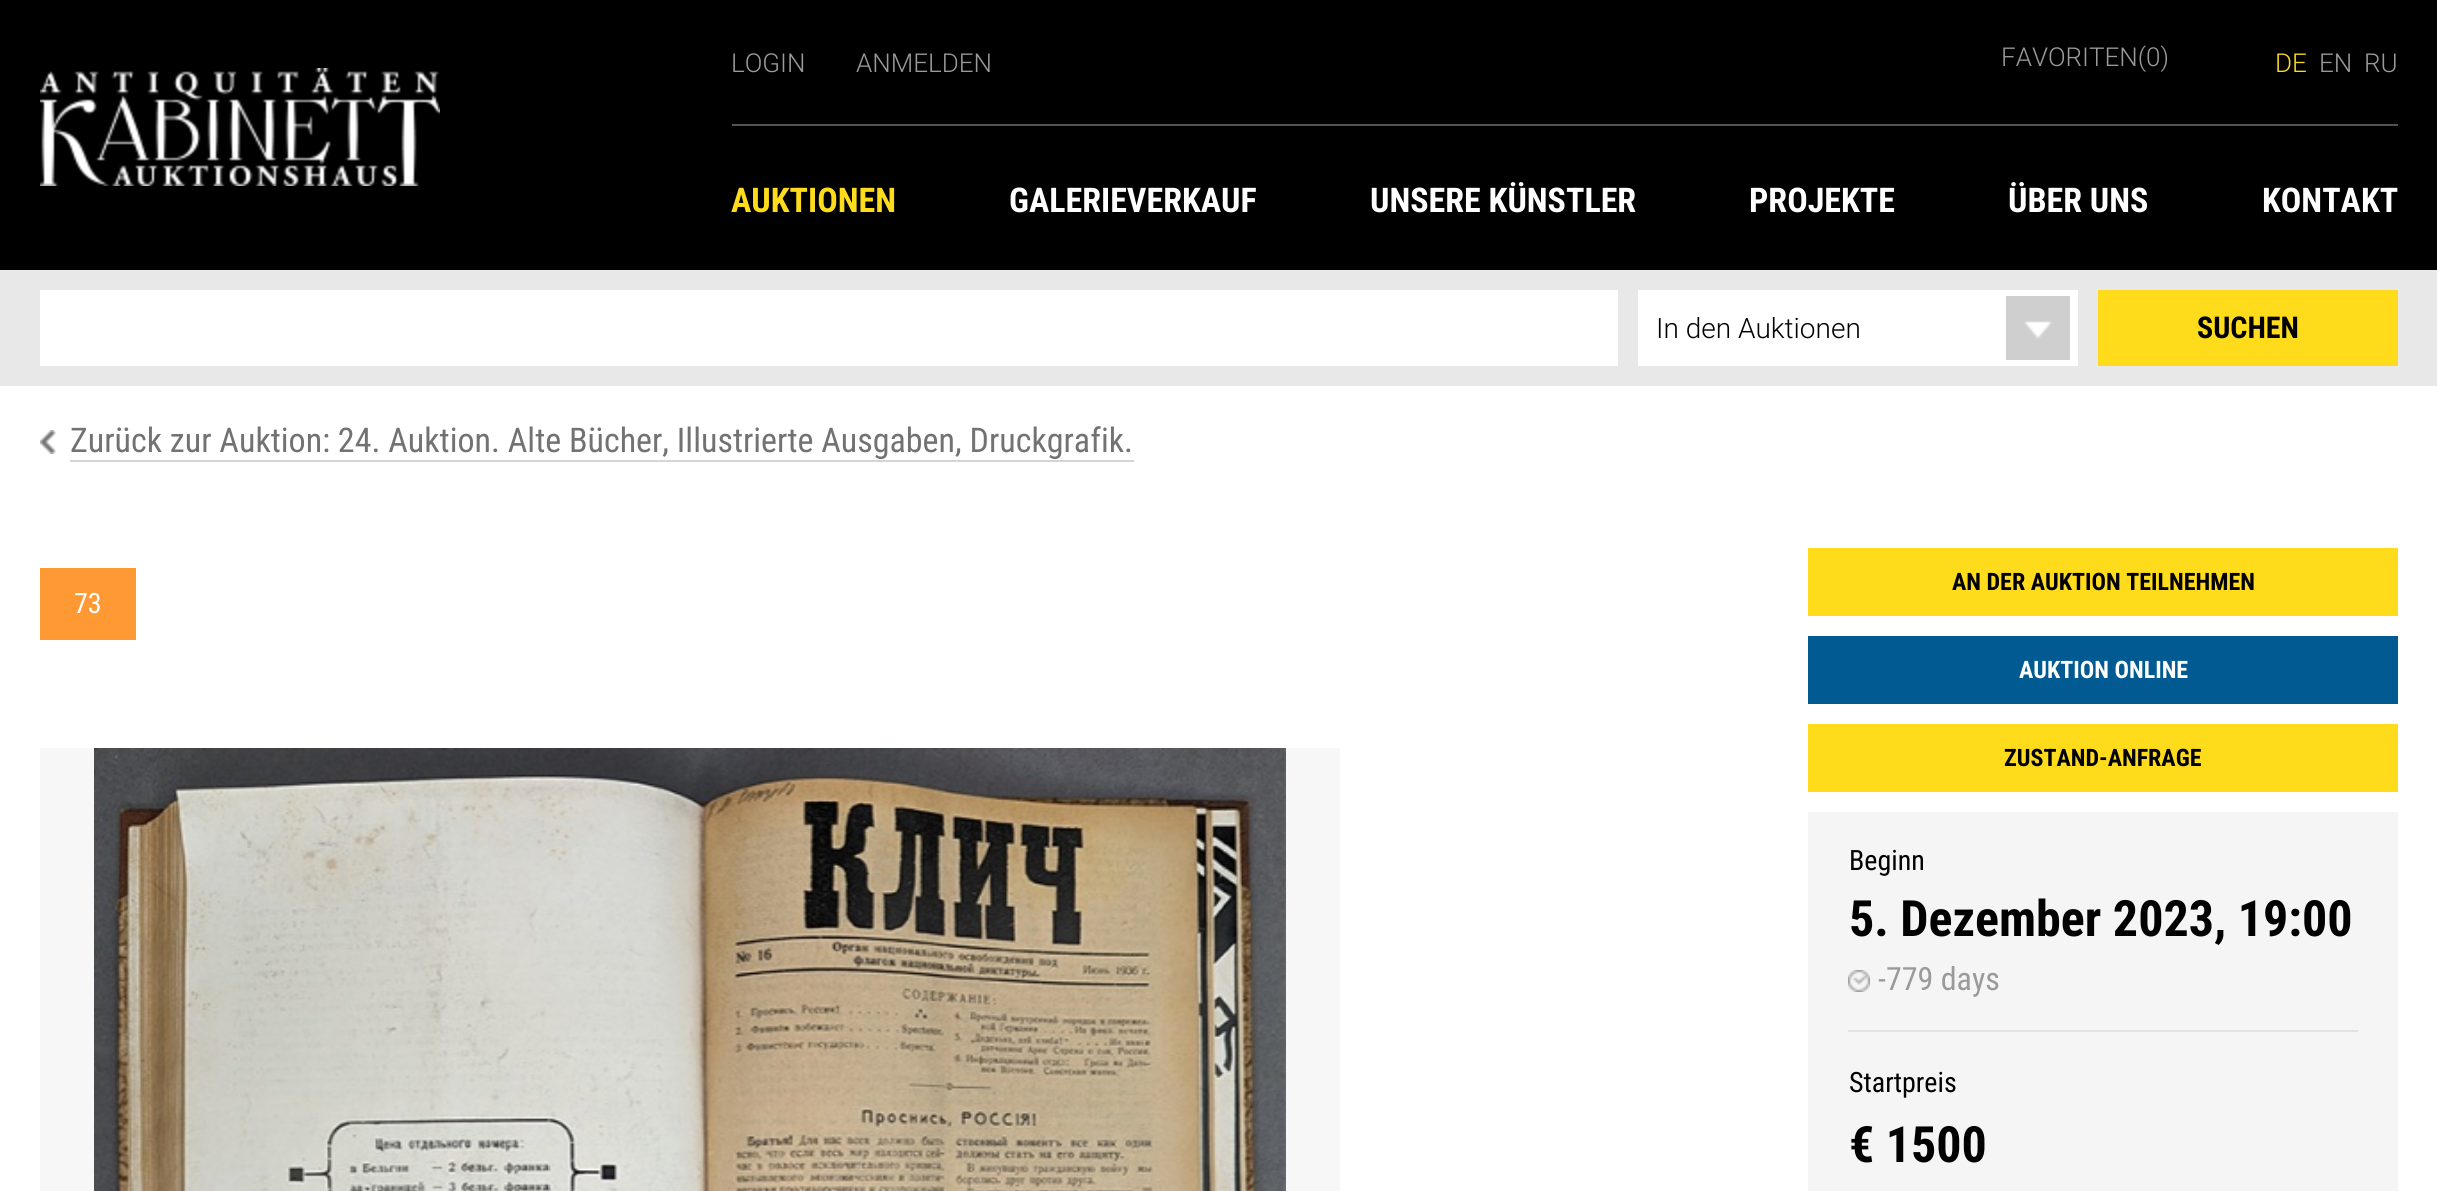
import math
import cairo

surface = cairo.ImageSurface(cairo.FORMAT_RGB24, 2437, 1191)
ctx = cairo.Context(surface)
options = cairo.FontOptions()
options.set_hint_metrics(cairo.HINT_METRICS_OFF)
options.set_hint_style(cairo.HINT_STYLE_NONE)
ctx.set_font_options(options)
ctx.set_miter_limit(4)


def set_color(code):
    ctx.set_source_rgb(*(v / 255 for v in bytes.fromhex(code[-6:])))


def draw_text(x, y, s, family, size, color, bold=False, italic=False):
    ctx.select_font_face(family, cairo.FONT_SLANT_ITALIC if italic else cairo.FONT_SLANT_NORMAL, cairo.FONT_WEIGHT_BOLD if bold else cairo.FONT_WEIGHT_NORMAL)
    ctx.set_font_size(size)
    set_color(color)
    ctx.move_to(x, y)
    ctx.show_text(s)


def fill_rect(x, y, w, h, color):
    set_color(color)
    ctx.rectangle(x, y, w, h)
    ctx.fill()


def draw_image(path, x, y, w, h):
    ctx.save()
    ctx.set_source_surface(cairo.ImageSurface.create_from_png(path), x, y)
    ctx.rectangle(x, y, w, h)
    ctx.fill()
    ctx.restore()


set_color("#ffffff")
ctx.paint()
fill_rect(0, 0, 2437, 270, "#000000")
fill_rect(732, 124, 1666, 2, "#545454")
draw_text(731, 72, "LOGIN", "Roboto Light", 26, "#9a9a9a")
draw_text(856, 72, "ANMELDEN", "Roboto Light", 26, "#9a9a9a")
draw_text(2001, 66, "FAVORITEN(0)", "Roboto Light", 26, "#9a9a9a")
draw_text(2275, 72, "DE", "Roboto Light", 26, "#ffdc1b")
draw_text(2319, 72, "EN", "Roboto Light", 26, "#9a9a9a")
draw_text(2364, 72, "RU", "Roboto Light", 26, "#9a9a9a")
draw_image("assets/img1.png", 40, 68, 400, 118)
draw_text(731, 212, "AUKTIONEN", "Roboto Condensed", 34, "#ffdc1b", bold=True)
draw_text(1009, 212, "GALERIEVERKAUF", "Roboto Condensed", 34, "#ffffff", bold=True)
draw_text(1370, 212, "UNSERE KÜNSTLER", "Roboto Condensed", 34, "#ffffff", bold=True)
draw_text(1749, 212, "PROJEKTE", "Roboto Condensed", 34, "#ffffff", bold=True)
draw_text(2008, 212, "ÜBER UNS", "Roboto Condensed", 34, "#ffffff", bold=True)
draw_text(2262, 212, "KONTAKT", "Roboto Condensed", 34, "#ffffff", bold=True)
fill_rect(0, 270, 2437, 116, "#e8e8e8")
fill_rect(40, 290, 1578, 76, "#ffffff")
fill_rect(1638, 290, 440, 76, "#ffffff")
draw_image("assets/img2.png", 2006, 296, 64, 64)
draw_text(1656, 338, "In den Auktionen", "Roboto Light", 28, "#010101")
fill_rect(2098, 290, 300, 76, "#ffdc1b")
draw_text(2197, 338, "SUCHEN", "Roboto Condensed", 30, "#010101", bold=True)
draw_image("assets/img3.png", 40, 430, 16, 24)
draw_text(70, 452, "Zurück zur Auktion: 24. Auktion. Alte Bücher, Illustrierte Ausgaben, Druckgrafik.", "Roboto Condensed", 34, "#727272")
fill_rect(70, 460, 1064, 2, "#d5d5d5")
fill_rect(40, 568, 96, 72, "#ff9933")
draw_text(74, 613, "73", "Roboto Condensed", 28, "#ffffff")
fill_rect(1808, 548, 590, 68, "#ffdc1b")
draw_text(1952, 590, "AN DER AUKTION TEILNEHMEN", "Roboto Condensed", 24, "#010101", bold=True)
fill_rect(1808, 636, 590, 68, "#025a92")
draw_text(2019, 678, "AUKTION ONLINE", "Roboto Condensed", 24, "#ffffff", bold=True)
fill_rect(1808, 724, 590, 68, "#ffdc1b")
draw_text(2004, 766, "ZUSTAND-ANFRAGE", "Roboto Condensed", 24, "#010101", bold=True)
fill_rect(1808, 812, 590, 379, "#f5f5f5")
fill_rect(1848, 1030, 510, 2, "#e2e2e2")
draw_text(1849, 870, "Beginn", "Roboto Condensed", 28, "#010101")
draw_text(1849, 936, "5. Dezember 2023, 19:00", "Roboto Condensed", 50, "#010101", bold=True)
draw_image("assets/img4.png", 1848, 970, 22, 22)
draw_text(1878, 990, "-779 days", "Roboto Condensed", 32, "#9a9a9a")
draw_text(1849, 1092, "Startpreis", "Roboto Condensed", 28, "#010101")
draw_text(1849, 1162, "€ 1500", "Roboto Condensed", 50, "#010101", bold=True)
fill_rect(40, 748, 1300, 443, "#f7f7f7")
draw_image("assets/img5.png", 94, 748, 1192, 443)
surface.write_to_png("output.png")
